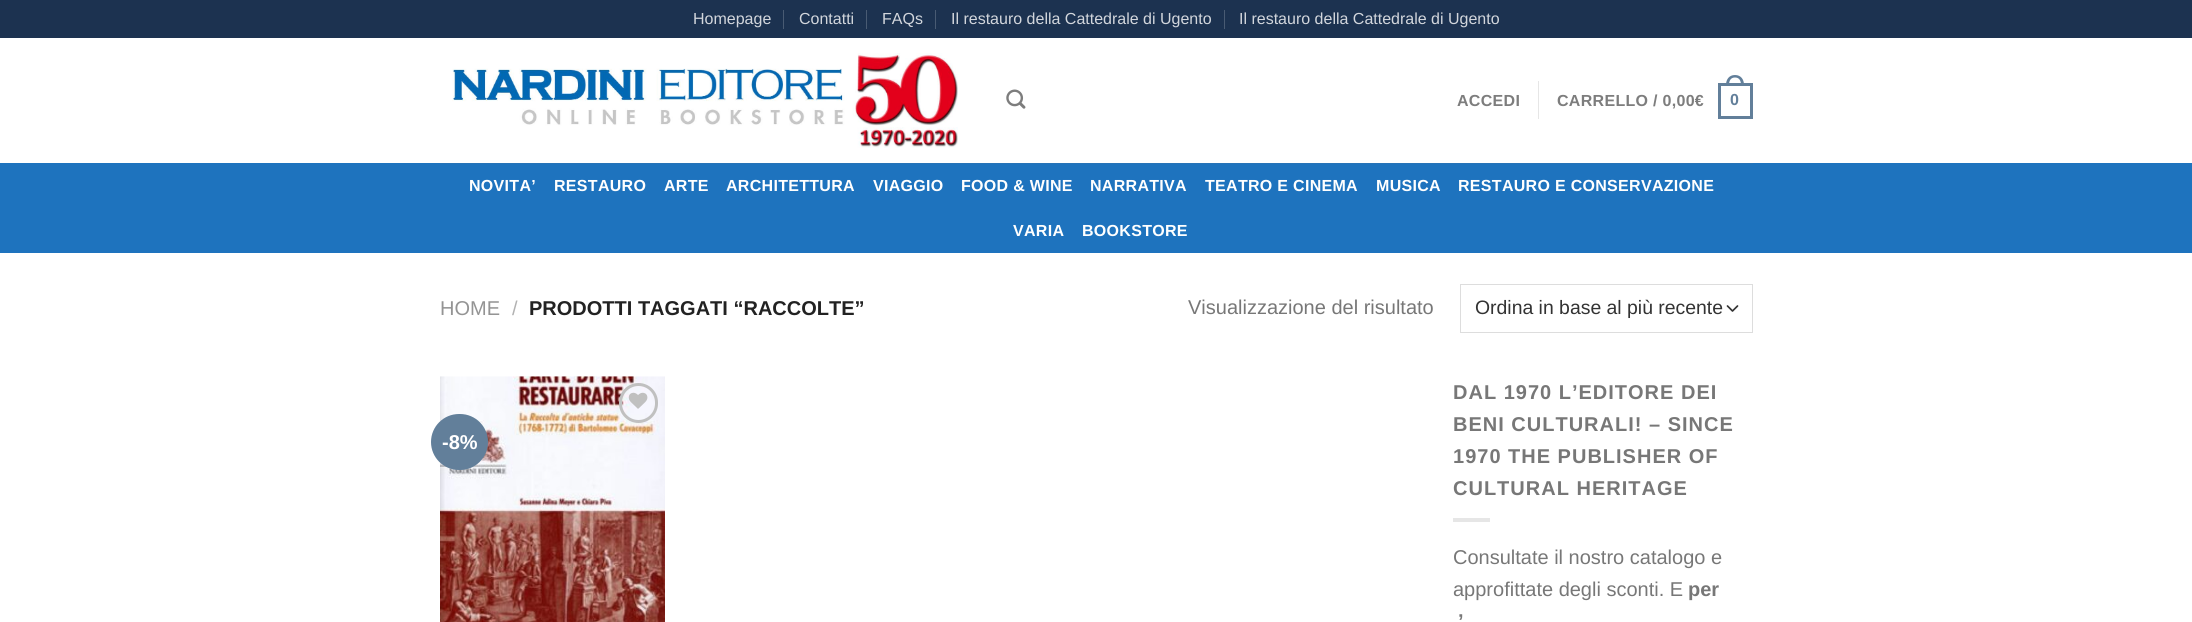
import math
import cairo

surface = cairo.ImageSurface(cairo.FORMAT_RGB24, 2192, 622)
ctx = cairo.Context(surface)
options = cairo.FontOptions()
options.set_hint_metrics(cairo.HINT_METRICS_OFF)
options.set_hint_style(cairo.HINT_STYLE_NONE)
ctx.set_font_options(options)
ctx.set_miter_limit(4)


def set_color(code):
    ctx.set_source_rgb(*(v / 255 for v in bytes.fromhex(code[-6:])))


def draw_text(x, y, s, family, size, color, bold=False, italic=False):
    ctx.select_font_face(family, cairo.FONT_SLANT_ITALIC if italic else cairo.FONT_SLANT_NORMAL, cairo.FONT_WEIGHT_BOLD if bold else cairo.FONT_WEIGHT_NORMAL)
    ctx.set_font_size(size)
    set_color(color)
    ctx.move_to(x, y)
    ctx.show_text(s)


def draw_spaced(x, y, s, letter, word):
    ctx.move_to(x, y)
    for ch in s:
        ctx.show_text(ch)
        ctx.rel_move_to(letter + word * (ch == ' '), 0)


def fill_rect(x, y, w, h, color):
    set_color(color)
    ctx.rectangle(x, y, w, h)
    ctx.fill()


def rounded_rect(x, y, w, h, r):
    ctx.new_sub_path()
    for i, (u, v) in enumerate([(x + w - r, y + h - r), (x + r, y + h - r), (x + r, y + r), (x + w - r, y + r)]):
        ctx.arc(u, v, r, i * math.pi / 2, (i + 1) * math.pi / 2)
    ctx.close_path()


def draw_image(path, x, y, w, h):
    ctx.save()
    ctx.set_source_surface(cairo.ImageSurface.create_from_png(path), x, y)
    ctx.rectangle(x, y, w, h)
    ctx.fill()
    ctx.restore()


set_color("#ffffff")
ctx.paint()
fill_rect(0, 0, 2192, 38, "#1c3250")
draw_text(693, 24, "Homepage", "Liberation Sans", 16, "#d2d6dc")
fill_rect(783, 10, 1, 19, "#495b73")
draw_text(799, 24, "Contatti", "Liberation Sans", 16, "#d2d6dc")
fill_rect(866, 10, 1, 19, "#495b73")
draw_text(882, 24, "FAQs", "Liberation Sans", 16, "#d2d6dc")
fill_rect(935, 10, 1, 19, "#495b73")
draw_text(951, 24, "Il restauro della Cattedrale di Ugento", "Liberation Sans", 16, "#d2d6dc")
fill_rect(1224, 10, 1, 19, "#495b73")
draw_text(1239, 24, "Il restauro della Cattedrale di Ugento", "Liberation Sans", 16, "#d2d6dc")
draw_image("assets/img1.png", 452, 53, 506, 95)
draw_image("assets/img2.png", 1006, 89, 20, 20)
ctx.select_font_face("Liberation Sans", cairo.FONT_SLANT_NORMAL, cairo.FONT_WEIGHT_BOLD)
set_color("#7d7d7d")
draw_spaced(1457, 106, "ACCEDI", 0.3, 0)
fill_rect(1538, 81, 1, 38, "#e6e6e6")
set_color("#7d7d7d")
draw_spaced(1557, 106, "CARRELLO / 0,00€", 0.3, 0)
ctx.rectangle(1719.5, 84.5, 32, 33)
set_color("#627f9a")
ctx.set_line_width(3)
ctx.stroke()
ctx.set_fill_rule(cairo.FILL_RULE_EVEN_ODD)
ctx.new_path()
ctx.move_to(1735, 75)
ctx.curve_to(1741, 75, 1744, 79.5, 1744, 85)
ctx.line_to(1726, 85)
ctx.curve_to(1726, 79.5, 1729, 75, 1735, 75)
ctx.close_path()
ctx.move_to(1735, 77.5)
ctx.curve_to(1739.5, 77.5, 1741, 81, 1741, 85)
ctx.line_to(1729, 85)
ctx.curve_to(1729, 81, 1730.5, 77.5, 1735, 77.5)
ctx.close_path()
ctx.fill()
draw_spaced(1730, 105, "0", 0.3, 0)
fill_rect(0, 163, 2192, 90, "#1e73be")
fill_rect(440, 163, 1313, 1, "#2773b7")
set_color("#ffffff")
draw_spaced(469, 191, "NOVITA’", 0.3, 0)
draw_spaced(554, 191, "RESTAURO", 0.3, 0)
draw_spaced(664, 191, "ARTE", 0.3, 0)
draw_spaced(726, 191, "ARCHITETTURA", 0.3, 0)
draw_spaced(873, 191, "VIAGGIO", 0.3, 0)
draw_spaced(961, 191, "FOOD & WINE", 0.3, 0)
draw_spaced(1090, 191, "NARRATIVA", 0.3, 0)
draw_spaced(1205, 191, "TEATRO E CINEMA", 0.3, 0)
draw_spaced(1376, 191, "MUSICA", 0.3, 0)
draw_spaced(1458, 191, "RESTAURO E CONSERVAZIONE", 0.3, 0)
draw_spaced(1013, 236, "VARIA", 0.3, 0)
draw_spaced(1082, 236, "BOOKSTORE", 0.3, 0)
draw_text(440, 315, "HOME", "Liberation Sans", 20, "#949494")
draw_text(512, 315, "/", "Liberation Sans", 20, "#b2b2b2")
draw_text(529, 315, "PRODOTTI TAGGATI “RACCOLTE”", "Liberation Sans", 20, "#222222", bold=True)
draw_text(1188, 314, "Visualizzazione del risultato", "Liberation Sans", 20, "#777777")
ctx.new_path()
ctx.move_to(1727.5, 306)
ctx.line_to(1732.5, 311)
ctx.line_to(1737.5, 306)
set_color("#333333")
ctx.set_line_width(1.7)
ctx.set_line_cap(cairo.LINE_CAP_ROUND)
ctx.set_line_join(cairo.LINE_JOIN_ROUND)
ctx.stroke()
ctx.rectangle(1460.5, 284.5, 292, 48)
set_color("#dddddd")
ctx.set_line_width(1)
ctx.set_line_cap(cairo.LINE_CAP_BUTT)
ctx.set_line_join(cairo.LINE_JOIN_MITER)
ctx.stroke()
draw_text(1475, 314, "Ordina in base al più recente", "Liberation Sans", 19.4, "#333333")
draw_image("assets/img3.png", 440, 376, 225, 246)
rounded_rect(620.5, 384.5, 36, 37, 18)
set_color("#c0c0c0")
ctx.set_line_width(3)
ctx.stroke()
draw_image("assets/img4.png", 628, 392, 20, 17)
set_color("#627f9a")
rounded_rect(431, 414, 57, 56, 28)
ctx.fill()
draw_text(442, 449, "-8%", "Liberation Sans", 20, "#ffffff", bold=True)
set_color("#777777")
draw_spaced(1453, 399, "DAL 1970 L’EDITORE DEI", 1, 0)
draw_spaced(1453, 431, "BENI CULTURALI! – SINCE", 1, 0)
draw_spaced(1453, 463, "1970 THE PUBLISHER OF", 1, 0)
draw_spaced(1453, 495, "CULTURAL HERITAGE", 1, 0)
fill_rect(1453, 518, 37, 4, "#e6e6e6")
draw_text(1453, 564, "Consultate il nostro catalogo e", "Liberation Sans", 20, "#777777")
draw_text(1453, 596, "approfittate degli sconti. E", "Liberation Sans", 20, "#777777")
draw_text(1688, 596, "per", "Liberation Sans", 20, "#777777", bold=True)
draw_text(1458, 628, "’", "Liberation Sans", 20, "#777777", bold=True)
surface.write_to_png("output.png")
